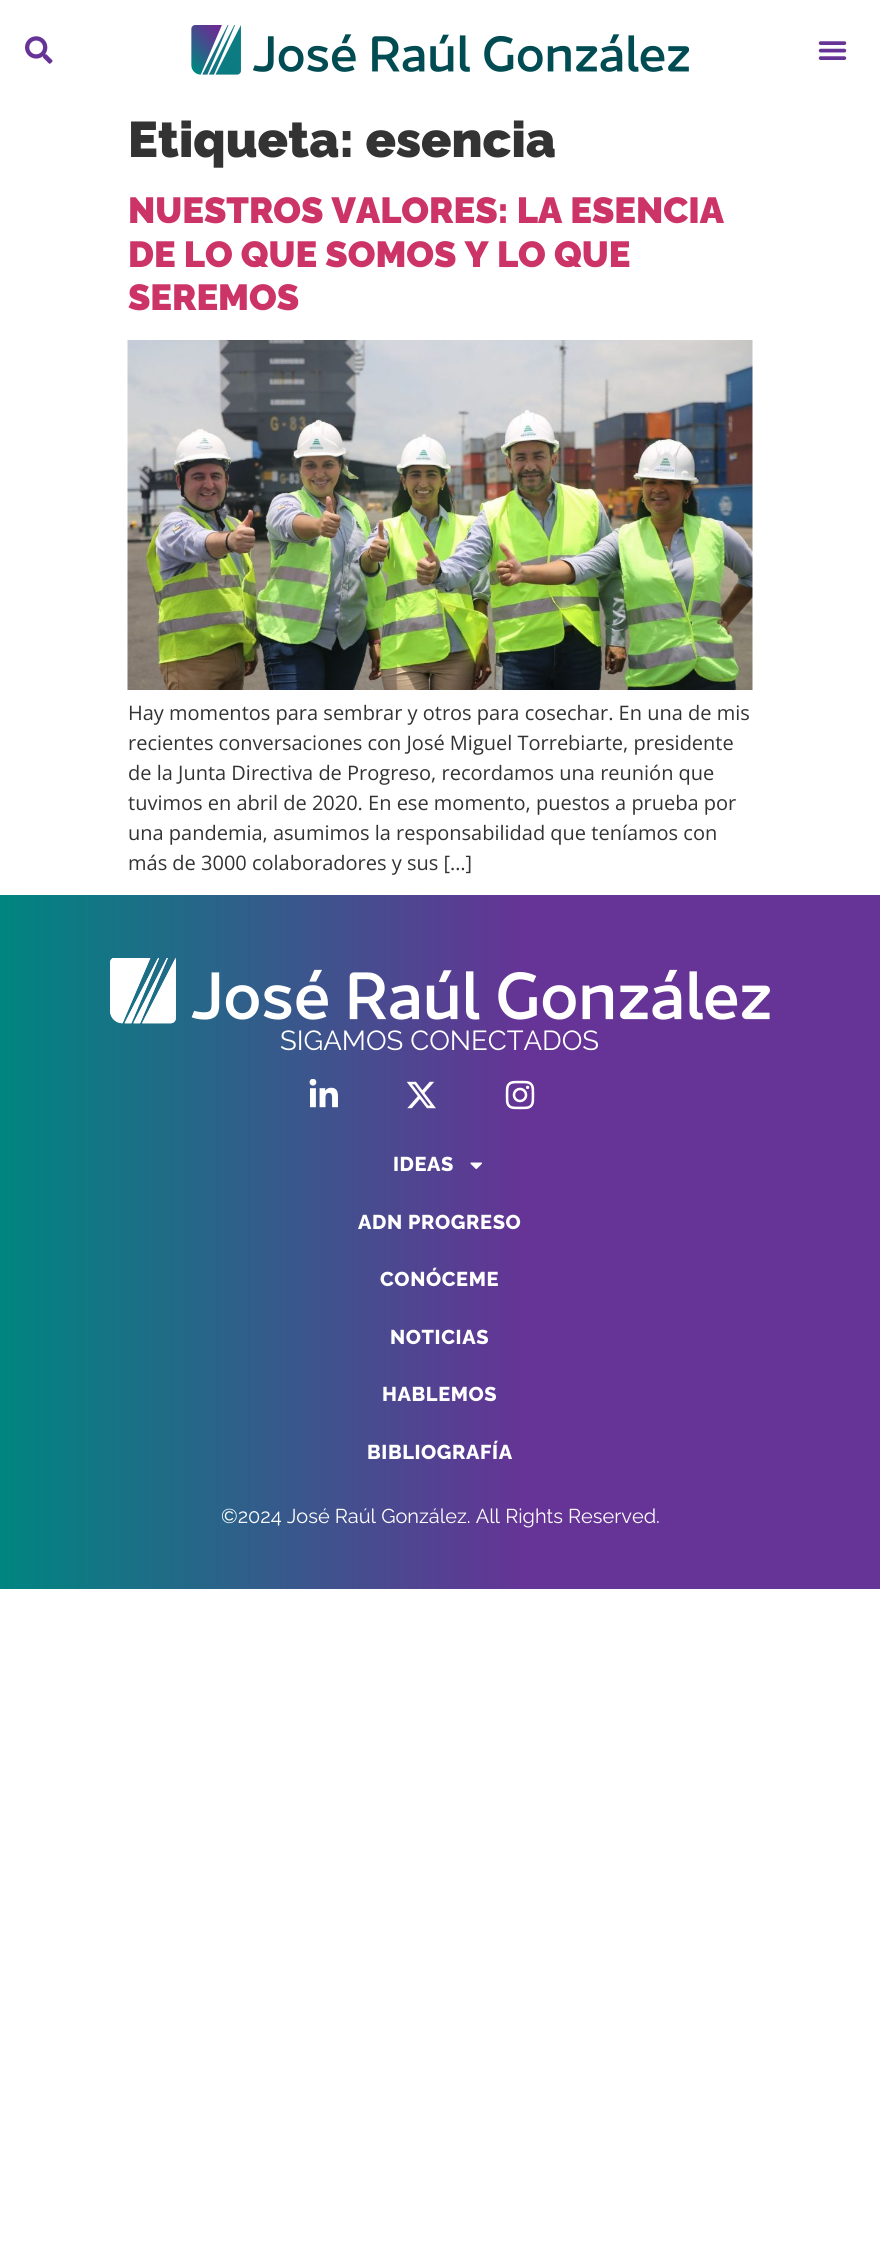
import math
import cairo

surface = cairo.ImageSurface(cairo.FORMAT_RGB24, 880, 2257)
ctx = cairo.Context(surface)
options = cairo.FontOptions()
options.set_hint_metrics(cairo.HINT_METRICS_OFF)
options.set_hint_style(cairo.HINT_STYLE_NONE)
ctx.set_font_options(options)
ctx.set_miter_limit(4)


def set_color(code):
    ctx.set_source_rgb(*(v / 255 for v in bytes.fromhex(code[-6:])))


def draw_text(x, y, s, family, size, color, bold=False, italic=False):
    ctx.select_font_face(family, cairo.FONT_SLANT_ITALIC if italic else cairo.FONT_SLANT_NORMAL, cairo.FONT_WEIGHT_BOLD if bold else cairo.FONT_WEIGHT_NORMAL)
    ctx.set_font_size(size)
    set_color(color)
    ctx.move_to(x, y)
    ctx.show_text(s)


def draw_spaced(x, y, s, letter, word):
    ctx.move_to(x, y)
    for ch in s:
        ctx.show_text(ch)
        ctx.rel_move_to(letter + word * (ch == ' '), 0)


def draw_image(path, x, y, w, h):
    ctx.save()
    ctx.set_source_surface(cairo.ImageSurface.create_from_png(path), x, y)
    ctx.rectangle(x, y, w, h)
    ctx.fill()
    ctx.restore()


set_color("#ffffff")
ctx.paint()
draw_image("assets/img1.png", 25, 36, 28, 28)
draw_image("assets/img2.png", 191, 25, 498, 50)
draw_image("assets/img3.png", 818, 41, 29, 19)
draw_text(128, 157, "Etiqueta: esencia", "Raleway Black", 50, "#333333")
draw_text(128, 223, "NUESTROS VALORES: LA ESENCIA", "Raleway Black", 36.25, "#cc3366")
draw_text(128, 267, "DE LO QUE SOMOS Y LO QUE", "Raleway Black", 36.25, "#cc3366")
draw_text(128, 310, "SEREMOS", "Raleway Black", 36.25, "#cc3366")
draw_image("assets/img4.png", 127, 340, 626, 350)
draw_text(128, 720, "Hay momentos para sembrar y otros para cosechar. En una de mis", "Open Sans", 20, "#333333")
draw_text(128, 750, "recientes conversaciones con José Miguel Torrebiarte, presidente", "Open Sans", 20, "#333333")
draw_text(128, 780, "de la Junta Directiva de Progreso, recordamos una reunión que", "Open Sans", 20, "#333333")
draw_text(128, 810, "tuvimos en abril de 2020. En ese momento, puestos a prueba por", "Open Sans", 20, "#333333")
draw_text(128, 840, "una pandemia, asumimos la responsabilidad que teníamos con", "Open Sans", 20, "#333333")
draw_text(128, 870, "más de 3000 colaboradores y sus […]", "Open Sans", 20, "#333333")
gradient = cairo.LinearGradient(0, 1242, 880, 1242)
gradient.add_color_stop_rgba(0, 0, 0.522, 0.502, 1)
gradient.add_color_stop_rgba(0.6, 0.4, 0.2, 0.588, 1)
ctx.set_source(gradient)
ctx.rectangle(0, 895, 880, 694)
ctx.fill()
draw_image("assets/img5.png", 110, 958, 660, 66)
draw_text(280, 1050, "SIGAMOS CONECTADOS", "Raleway", 27.5, "#ffffff")
draw_image("assets/img6.png", 309, 1079, 29, 29)
draw_image("assets/img7.png", 406, 1081, 30, 28)
draw_image("assets/img8.png", 505, 1080, 30, 30)
ctx.select_font_face("Raleway ExtraBold")
ctx.set_font_size(20)
draw_spaced(393, 1171, "IDEAS", 0.6, 0)
draw_image("assets/img9.png", 470, 1162, 12, 7)
draw_spaced(358, 1229, "ADN PROGRESO", 0.6, 0)
draw_spaced(380, 1286, "CONÓCEME", 0.6, 0)
draw_spaced(390, 1344, "NOTICIAS", 0.6, 0)
draw_spaced(382, 1401, "HABLEMOS", 0.6, 0)
draw_spaced(367, 1459, "BIBLIOGRAFÍA", 0.6, 0)
draw_text(221, 1523, "©2024 José Raúl González. All Rights Reserved.", "Raleway", 20, "#ffffff")
surface.write_to_png("output.png")
